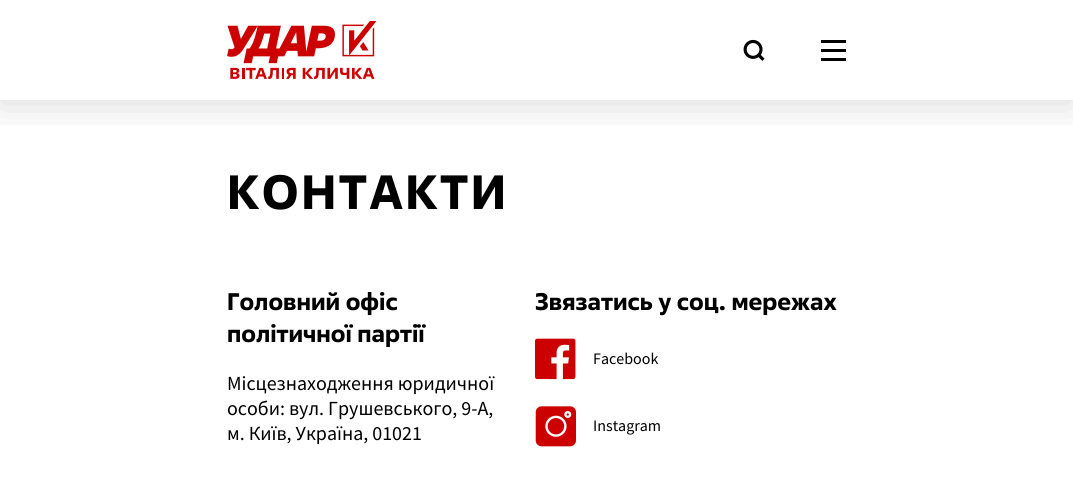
import math
import cairo

surface = cairo.ImageSurface(cairo.FORMAT_RGB24, 1073, 489)
ctx = cairo.Context(surface)
options = cairo.FontOptions()
options.set_hint_metrics(cairo.HINT_METRICS_OFF)
options.set_hint_style(cairo.HINT_STYLE_NONE)
ctx.set_font_options(options)
ctx.set_miter_limit(4)


def set_color(code):
    ctx.set_source_rgb(*(v / 255 for v in bytes.fromhex(code[-6:])))


def draw_text(x, y, s, family, size, color, bold=False, italic=False):
    ctx.select_font_face(family, cairo.FONT_SLANT_ITALIC if italic else cairo.FONT_SLANT_NORMAL, cairo.FONT_WEIGHT_BOLD if bold else cairo.FONT_WEIGHT_NORMAL)
    ctx.set_font_size(size)
    set_color(color)
    ctx.move_to(x, y)
    ctx.show_text(s)


def draw_spaced(x, y, s, letter, word):
    ctx.move_to(x, y)
    for ch in s:
        ctx.show_text(ch)
        ctx.rel_move_to(letter + word * (ch == ' '), 0)


def fill_rect(x, y, w, h, color):
    set_color(color)
    ctx.rectangle(x, y, w, h)
    ctx.fill()


def rounded_rect(x, y, w, h, r):
    ctx.new_sub_path()
    for i, (u, v) in enumerate([(x + w - r, y + h - r), (x + r, y + h - r), (x + r, y + r), (x + w - r, y + r)]):
        ctx.arc(u, v, r, i * math.pi / 2, (i + 1) * math.pi / 2)
    ctx.close_path()


def draw_shadow(x, y, w, h, r, blur, alpha):
    ctx.push_group_with_content(cairo.CONTENT_ALPHA)
    ctx.set_operator(cairo.OPERATOR_SOURCE)
    for i in range(15, -16, -2):
        e = blur * i / 6
        if min(w, h) + 2 * e > 0:
            ctx.set_source_rgba(0, 0, 0, alpha * math.erfc((i - 1) / 8.5) / 2)
            rounded_rect(x - e, y - e, w + 2 * e, h + 2 * e, max(0, min(r + e + blur * .6, min(w, h) / 2 + e)))
            ctx.fill()
    ctx.mask(ctx.pop_group())


def draw_image(path, x, y, w, h):
    ctx.save()
    ctx.set_source_surface(cairo.ImageSurface.create_from_png(path), x, y)
    ctx.rectangle(x, y, w, h)
    ctx.fill()
    ctx.restore()


set_color("#ffffff")
ctx.paint()
ctx.save()
ctx.rectangle(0, 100, 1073, 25)
ctx.clip()
set_color("#000000")
draw_shadow(0, 3, 1073, 100, 0, 20, 0.15)
ctx.restore()
draw_image("assets/img1.png", 227, 21, 150, 58)
draw_image("assets/img2.png", 743, 39, 22, 22)
fill_rect(821, 40, 25, 3, "#000000")
fill_rect(821, 49, 25, 3, "#000000")
fill_rect(821, 58, 25, 3, "#000000")
ctx.select_font_face("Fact", cairo.FONT_SLANT_NORMAL, cairo.FONT_WEIGHT_BOLD)
ctx.set_font_size(48)
draw_spaced(227, 209, "КОНТАКТИ", 2.5, 0)
draw_text(227, 310, "Головний офіс", "Fact", 24, "#000000", bold=True)
draw_text(227, 342, "політичної партії", "Fact", 24, "#000000", bold=True)
draw_text(227, 390, "Місцезнаходження юридичної", "Source Sans Pro", 20, "#000000")
draw_text(227, 415, "особи: вул. Грушевського, 9-А,", "Source Sans Pro", 20, "#000000")
draw_text(227, 440, "м. Київ, Україна, 01021", "Source Sans Pro", 20, "#000000")
draw_text(535, 310, "Звязатись у соц. мережах", "Fact", 24, "#000000", bold=True)
draw_image("assets/img3.png", 535, 338, 41, 42)
draw_text(593, 364, "Facebook", "Source Sans Pro", 16, "#000000")
draw_image("assets/img4.png", 535, 406, 41, 41)
draw_text(593, 431, "Instagram", "Source Sans Pro", 16, "#000000")
surface.write_to_png("output.png")
